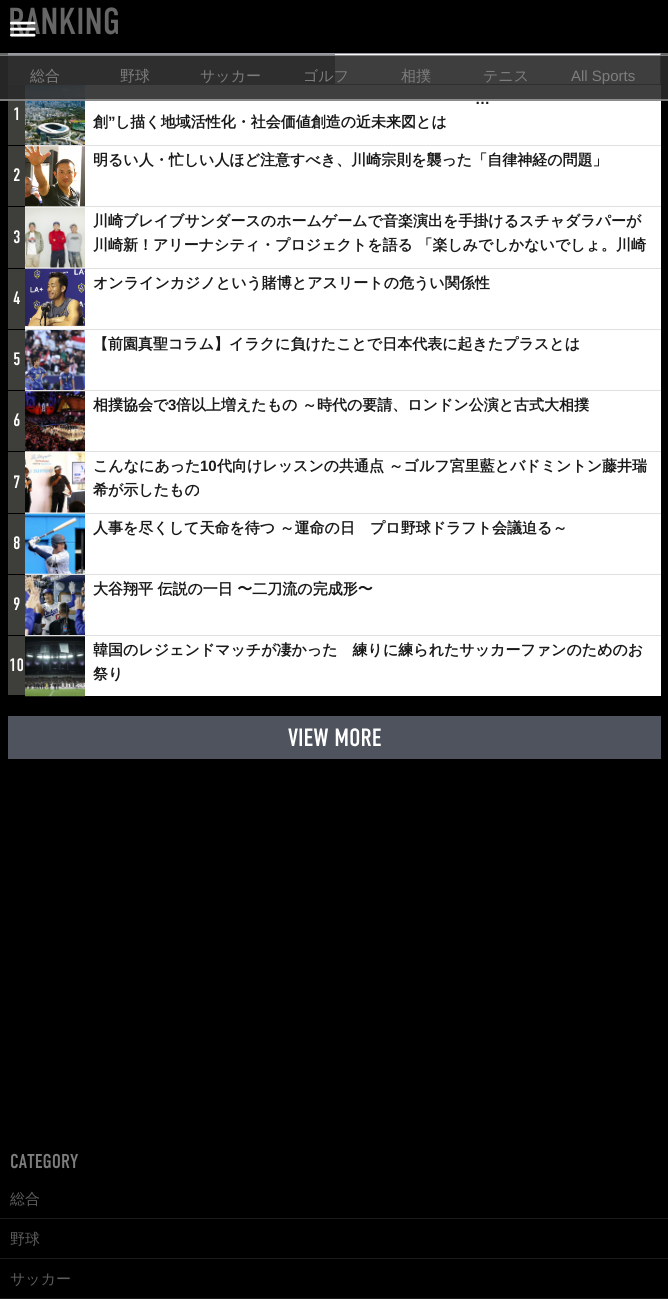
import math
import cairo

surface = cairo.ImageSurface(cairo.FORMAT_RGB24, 668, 1299)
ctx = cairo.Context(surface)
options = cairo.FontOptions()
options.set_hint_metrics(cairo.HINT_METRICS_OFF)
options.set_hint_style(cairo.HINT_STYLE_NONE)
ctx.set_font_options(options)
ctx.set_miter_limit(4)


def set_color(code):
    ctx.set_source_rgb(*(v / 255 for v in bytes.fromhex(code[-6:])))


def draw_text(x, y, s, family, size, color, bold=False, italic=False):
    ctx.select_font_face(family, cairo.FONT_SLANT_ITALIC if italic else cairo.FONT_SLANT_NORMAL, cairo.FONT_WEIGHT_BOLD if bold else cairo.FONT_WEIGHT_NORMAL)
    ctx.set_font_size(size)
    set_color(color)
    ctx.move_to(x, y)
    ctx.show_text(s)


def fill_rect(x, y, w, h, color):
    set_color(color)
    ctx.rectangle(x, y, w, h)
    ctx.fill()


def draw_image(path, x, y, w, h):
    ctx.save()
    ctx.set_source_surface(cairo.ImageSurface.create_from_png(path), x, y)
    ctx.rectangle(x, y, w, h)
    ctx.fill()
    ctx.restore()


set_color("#000000")
ctx.paint()
draw_text(8, 34, "RANKING", "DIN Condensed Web", 37.5, "#666666")
fill_rect(335, 54, 325, 30, "#f1f1f1")
fill_rect(8, 53, 653, 1, "#4f535e")
fill_rect(8, 84, 653, 1, "#4f535e")
fill_rect(334, 54, 1, 30, "#4f535e")
fill_rect(8, 54, 326, 30, "#4f535e")
fill_rect(660, 54, 1, 30, "#4f535e")
fill_rect(8, 85, 17, 60, "#3e3e3a")
draw_text(13, 120, "1", "DIN Condensed Web", 18, "#ffffff")
fill_rect(85, 85, 576, 60, "#ffffff")
fill_rect(25, 145, 636, 1, "#e0e0e0")
draw_image("assets/img1.png", 25, 85, 60, 60)
draw_text(475, 104, "…", "Liberation Sans", 15, "#1a1a1a", bold=True)
draw_text(93, 127, "創", "WenQuanYi Zen Hei", 15, "#1a1a1a", bold=True)
draw_text(108, 127, "”", "Liberation Sans", 15, "#1a1a1a", bold=True)
draw_text(115, 127, "し描く地域活性化・社会価値創造の近未来図とは", "WenQuanYi Zen Hei", 15, "#1a1a1a", bold=True)
fill_rect(25, 146, 636, 122, "#ffffff")
fill_rect(25, 206, 636, 1, "#e0e0e0")
draw_image("assets/img2.png", 25, 146, 60, 61)
draw_text(93, 165, "明るい人・忙しい人ほど注意すべき、川崎宗則を襲った「自律神経の問題」", "WenQuanYi Zen Hei", 15, "#1a1a1a", bold=True)
fill_rect(8, 146, 17, 122, "#3e3e3a")
fill_rect(8, 206, 17, 1, "#000000")
draw_text(13, 181, "2", "DIN Condensed Web", 18, "#ffffff")
draw_text(13, 243, "3", "DIN Condensed Web", 18, "#ffffff")
fill_rect(25, 268, 636, 1, "#e0e0e0")
draw_image("assets/img3.png", 25, 207, 60, 61)
draw_text(93, 226, "川崎ブレイブサンダースのホームゲームで音楽演出を手掛けるスチャダラパーが", "WenQuanYi Zen Hei", 15, "#1a1a1a", bold=True)
draw_text(93, 250, "川崎新！アリーナシティ・プロジェクトを語る 「楽しみでしかないでしょ。川崎", "WenQuanYi Zen Hei", 15, "#1a1a1a", bold=True)
fill_rect(25, 269, 636, 60, "#ffffff")
fill_rect(25, 329, 636, 1, "#e0e0e0")
draw_image("assets/img4.png", 25, 268, 60, 61)
draw_text(93, 288, "オンラインカジノという賭博とアスリートの危うい関係性", "WenQuanYi Zen Hei", 15, "#1a1a1a", bold=True)
fill_rect(8, 269, 17, 60, "#3e3e3a")
draw_text(13, 304, "4", "DIN Condensed Web", 18, "#ffffff")
fill_rect(85, 330, 576, 60, "#ffffff")
fill_rect(25, 390, 636, 1, "#e0e0e0")
draw_image("assets/img5.png", 25, 330, 60, 60)
draw_text(93, 349, "【前園真聖コラム】イラクに負けたことで日本代表に起きたプラスとは", "WenQuanYi Zen Hei", 15, "#1a1a1a", bold=True)
fill_rect(8, 330, 17, 60, "#3e3e3a")
draw_text(13, 365, "5", "DIN Condensed Web", 18, "#ffffff")
fill_rect(25, 391, 636, 122, "#ffffff")
fill_rect(25, 451, 636, 1, "#e0e0e0")
draw_image("assets/img6.png", 25, 391, 60, 61)
draw_text(93, 410, "相撲協会で", "WenQuanYi Zen Hei", 15, "#1a1a1a", bold=True)
draw_text(168, 410, "3", "Liberation Sans", 15, "#1a1a1a", bold=True)
draw_text(176, 410, "倍以上増えたもの ～時代の要請、ロンドン公演と古式大相撲", "WenQuanYi Zen Hei", 15, "#1a1a1a", bold=True)
fill_rect(8, 391, 17, 122, "#3e3e3a")
fill_rect(8, 451, 17, 1, "#000000")
draw_text(13, 426, "6", "DIN Condensed Web", 18, "#ffffff")
draw_text(13, 488, "7", "DIN Condensed Web", 18, "#ffffff")
fill_rect(25, 513, 636, 1, "#e0e0e0")
draw_image("assets/img7.png", 25, 452, 60, 61)
draw_text(93, 471, "こんなにあった", "WenQuanYi Zen Hei", 15, "#1a1a1a", bold=True)
draw_text(200, 471, "10", "Liberation Sans", 15, "#1a1a1a", bold=True)
draw_text(217, 471, "代向けレッスンの共通点 ～ゴルフ宮里藍とバドミントン藤井瑞", "WenQuanYi Zen Hei", 15, "#1a1a1a", bold=True)
draw_text(93, 495, "希が示したもの", "WenQuanYi Zen Hei", 15, "#1a1a1a", bold=True)
fill_rect(25, 514, 636, 60, "#ffffff")
fill_rect(25, 574, 636, 1, "#e0e0e0")
draw_image("assets/img8.png", 25, 513, 60, 61)
draw_text(93, 533, "人事を尽くして天命を待つ ～運命の日　プロ野球ドラフト会議迫る～", "WenQuanYi Zen Hei", 15, "#1a1a1a", bold=True)
fill_rect(8, 514, 17, 60, "#3e3e3a")
draw_text(13, 549, "8", "DIN Condensed Web", 18, "#ffffff")
fill_rect(85, 575, 576, 60, "#ffffff")
fill_rect(25, 635, 636, 1, "#e0e0e0")
draw_image("assets/img9.png", 25, 575, 60, 60)
draw_text(93, 594, "大谷翔平 伝説の一日 〜二刀流の完成形〜", "WenQuanYi Zen Hei", 15, "#1a1a1a", bold=True)
fill_rect(8, 575, 17, 60, "#3e3e3a")
draw_text(13, 610, "9", "DIN Condensed Web", 18, "#ffffff")
fill_rect(8, 636, 17, 59, "#3e3e3a")
draw_text(9, 671, "10", "DIN Condensed Web", 18, "#ffffff")
fill_rect(25, 636, 636, 60, "#ffffff")
draw_image("assets/img10.png", 25, 636, 60, 61)
draw_text(93, 655, "韓国のレジェンドマッチが凄かった　練りに練られたサッカーファンのためのお", "WenQuanYi Zen Hei", 15, "#1a1a1a", bold=True)
draw_text(93, 679, "祭り", "WenQuanYi Zen Hei", 15, "#1a1a1a", bold=True)
fill_rect(8, 716, 653, 43, "#4f535e")
draw_text(288, 746, "VIEW MORE", "DIN Condensed Web", 25, "#ffffff")
draw_image("assets/img11.png", 10, 21, 26, 16)
ctx.set_source_rgba(0.169, 0.169, 0.169, 0.9)
ctx.rectangle(0, 55, 668, 46)
ctx.fill()
ctx.set_source_rgba(1, 1, 1, 0.4)
ctx.rectangle(0, 53, 668, 3)
ctx.fill()
draw_text(30, 81, "総合", "WenQuanYi Zen Hei Medium", 15, "#7d7d7d")
ctx.set_source_rgba(1, 1, 1, 0.4)
ctx.rectangle(0, 99, 90, 2)
ctx.fill()
draw_text(120, 81, "野球", "WenQuanYi Zen Hei Medium", 15, "#7d7d7d")
ctx.set_source_rgba(1, 1, 1, 0.4)
ctx.rectangle(90, 99, 90, 2)
ctx.fill()
draw_text(200, 81, "サッカー", "WenQuanYi Zen Hei Medium", 15, "#7d7d7d")
ctx.set_source_rgba(1, 1, 1, 0.4)
ctx.rectangle(180, 99, 101, 2)
ctx.fill()
draw_text(303, 81, "ゴルフ", "WenQuanYi Zen Hei Medium", 15, "#7d7d7d")
ctx.set_source_rgba(1, 1, 1, 0.4)
ctx.rectangle(281, 99, 90, 2)
ctx.fill()
draw_text(401, 81, "相撲", "WenQuanYi Zen Hei Medium", 15, "#7d7d7d")
ctx.set_source_rgba(1, 1, 1, 0.4)
ctx.rectangle(371, 99, 90, 2)
ctx.fill()
draw_text(483, 81, "テニス", "WenQuanYi Zen Hei Medium", 15, "#7d7d7d")
ctx.set_source_rgba(1, 1, 1, 0.4)
ctx.rectangle(461, 99, 90, 2)
ctx.fill()
draw_text(571, 81, "All Sports", "Liberation Sans", 15, "#7d7d7d")
ctx.set_source_rgba(1, 1, 1, 0.4)
ctx.rectangle(551, 99, 104, 2)
ctx.fill()
ctx.rectangle(655, 99, 13, 2)
ctx.fill()
draw_text(10, 1168, "CATEGORY", "DIN Condensed Web", 20, "#7d7d7d")
fill_rect(0, 1218, 668, 1, "#1a1a1a")
draw_text(10, 1204, "総合", "WenQuanYi Zen Hei Medium", 15, "#5e5e5e")
fill_rect(0, 1258, 668, 1, "#1a1a1a")
draw_text(10, 1244, "野球", "WenQuanYi Zen Hei Medium", 15, "#5e5e5e")
fill_rect(0, 1298, 668, 1, "#1a1a1a")
draw_text(10, 1284, "サッカー", "WenQuanYi Zen Hei Medium", 15, "#5e5e5e")
surface.write_to_png("output.png")
